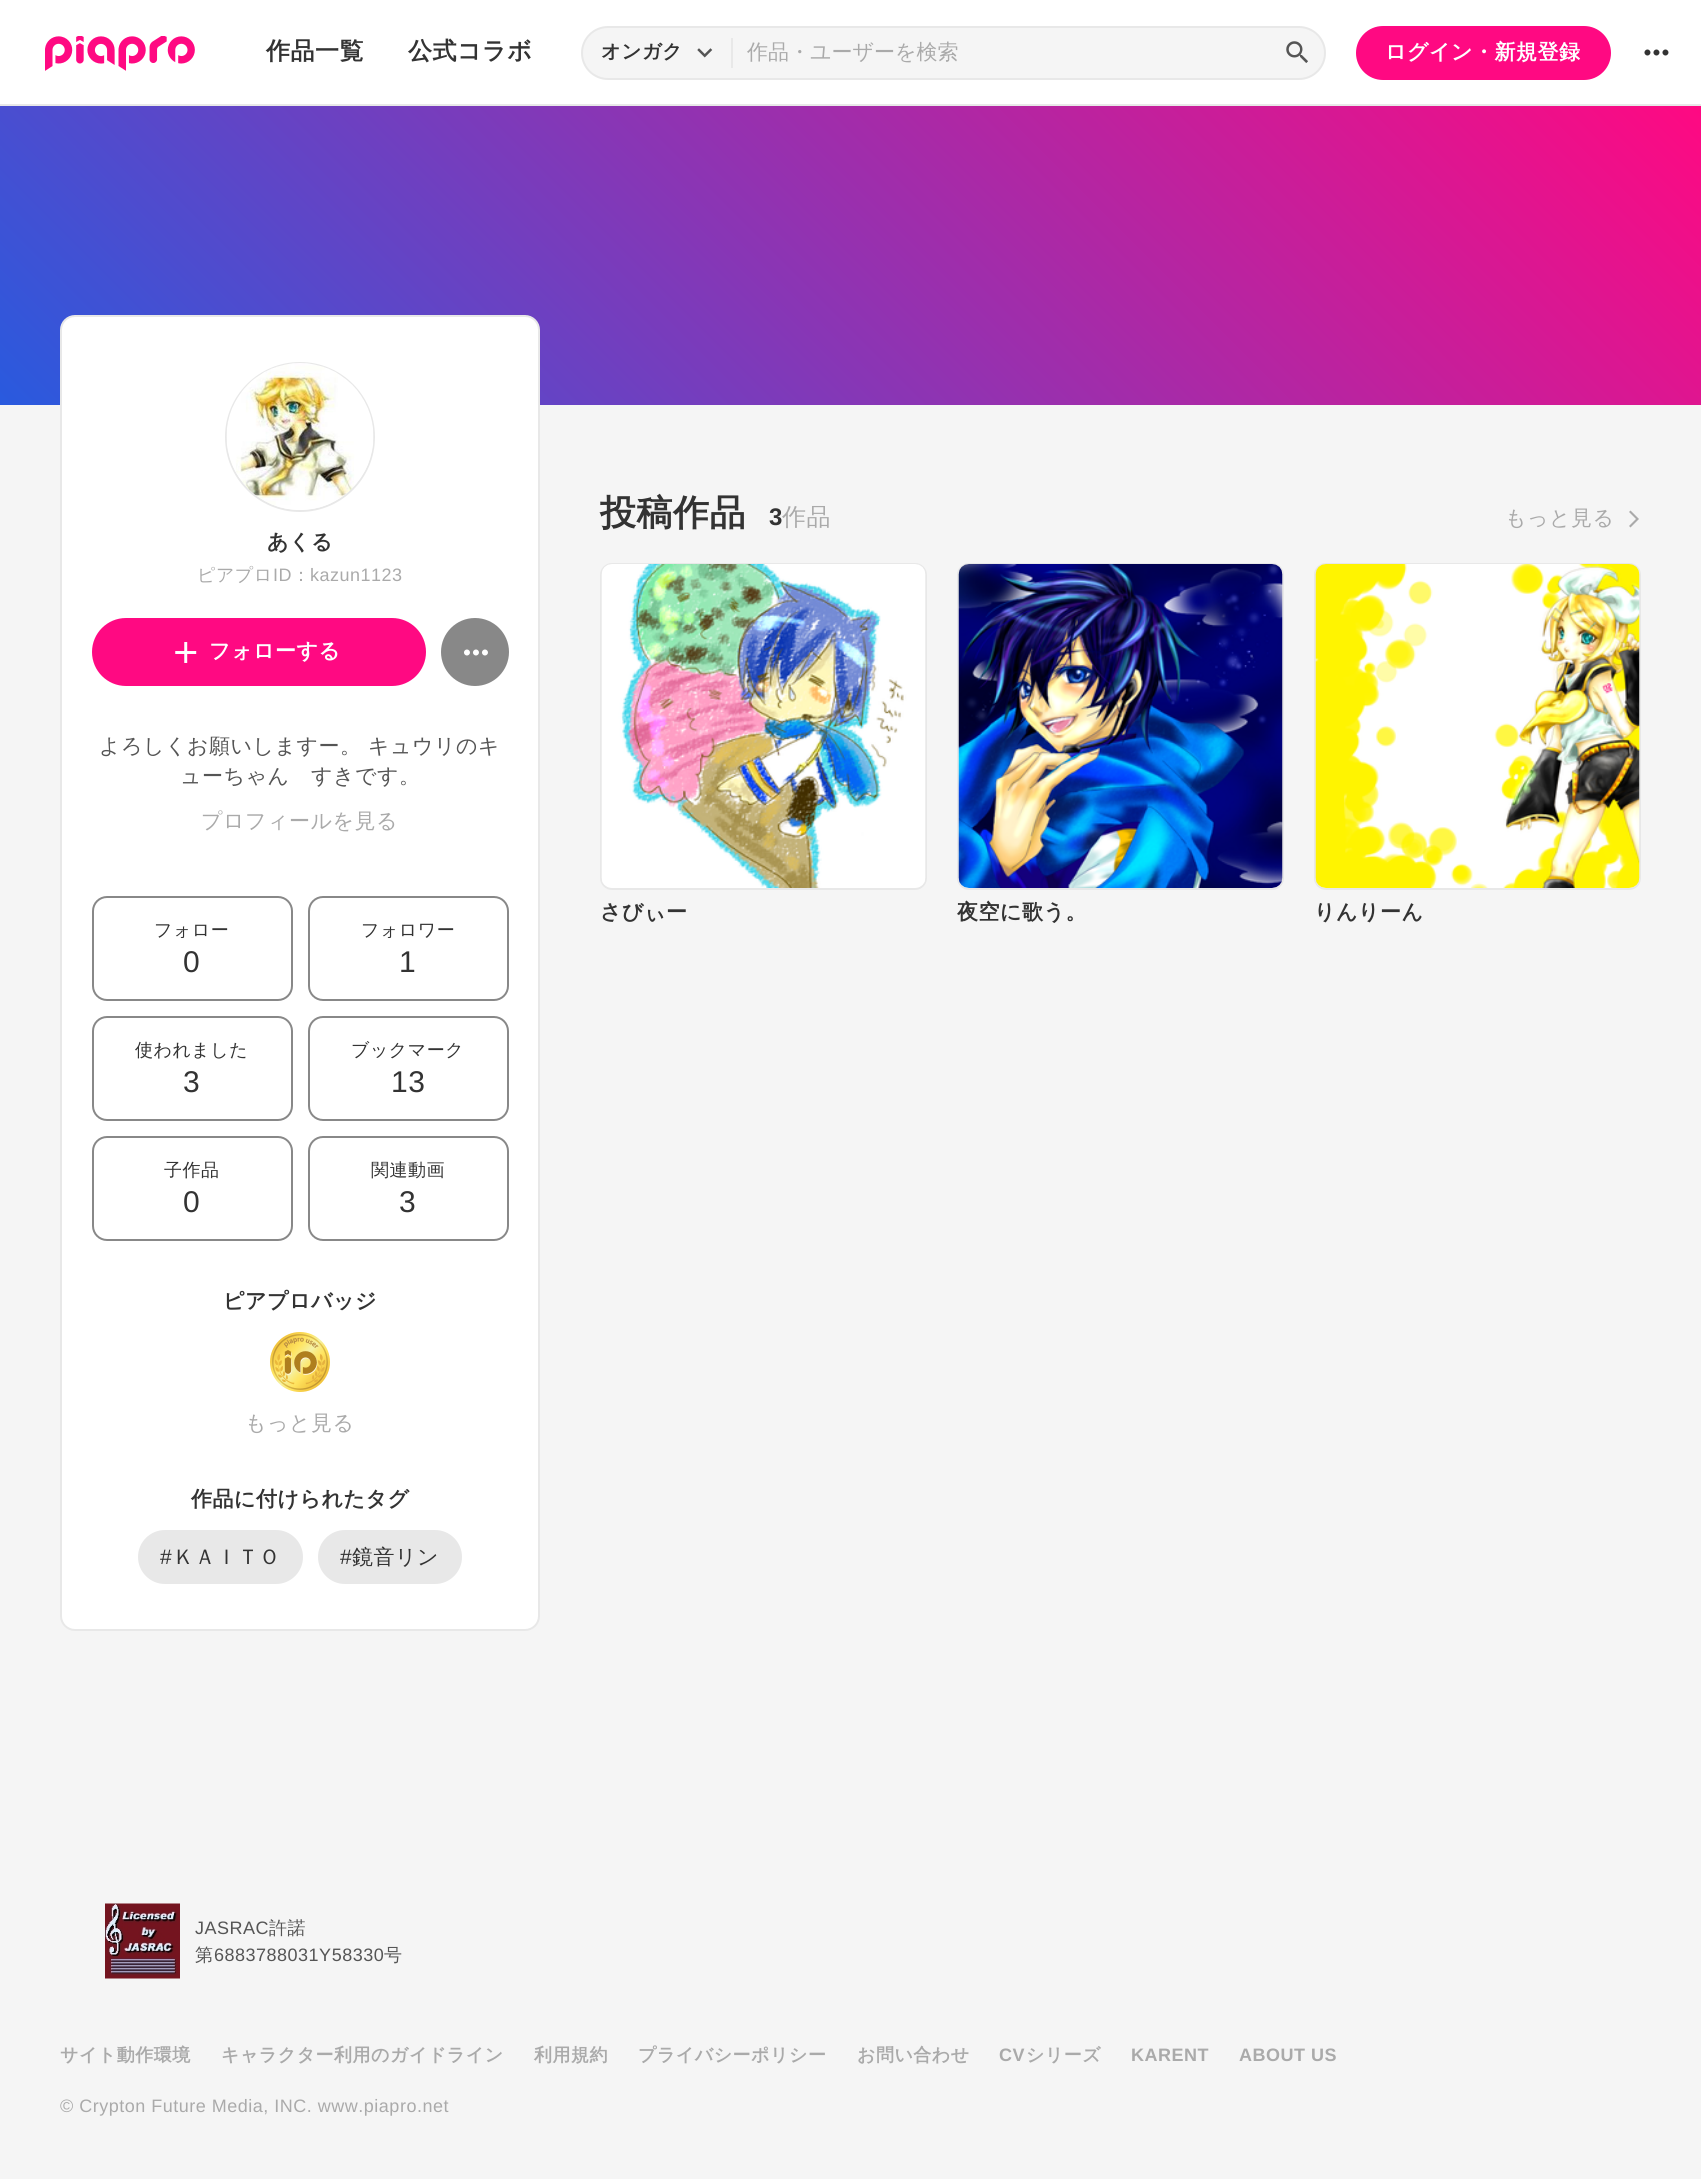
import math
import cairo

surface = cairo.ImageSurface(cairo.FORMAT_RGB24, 1701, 2179)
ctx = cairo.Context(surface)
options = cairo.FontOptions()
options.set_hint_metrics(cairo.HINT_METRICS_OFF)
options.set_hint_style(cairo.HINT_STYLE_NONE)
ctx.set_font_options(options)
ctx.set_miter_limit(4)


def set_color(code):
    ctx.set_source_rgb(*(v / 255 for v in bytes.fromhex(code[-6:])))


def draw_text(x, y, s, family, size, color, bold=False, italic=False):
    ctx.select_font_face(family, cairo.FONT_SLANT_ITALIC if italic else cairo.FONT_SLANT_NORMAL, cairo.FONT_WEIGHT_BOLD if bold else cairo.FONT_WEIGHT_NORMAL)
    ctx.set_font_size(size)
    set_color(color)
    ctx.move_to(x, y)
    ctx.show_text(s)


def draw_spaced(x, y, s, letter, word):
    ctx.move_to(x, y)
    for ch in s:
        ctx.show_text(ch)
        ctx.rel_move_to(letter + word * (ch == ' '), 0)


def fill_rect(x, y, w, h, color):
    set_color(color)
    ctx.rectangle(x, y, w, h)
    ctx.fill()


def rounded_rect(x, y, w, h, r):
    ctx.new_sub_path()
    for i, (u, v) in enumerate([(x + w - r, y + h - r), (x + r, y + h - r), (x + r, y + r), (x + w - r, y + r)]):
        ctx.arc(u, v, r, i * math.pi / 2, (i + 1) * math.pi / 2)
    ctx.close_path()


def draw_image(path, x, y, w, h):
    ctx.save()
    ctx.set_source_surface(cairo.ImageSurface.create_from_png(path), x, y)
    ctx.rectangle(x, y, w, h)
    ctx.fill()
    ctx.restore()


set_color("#f5f5f5")
ctx.paint()
fill_rect(0, 0, 1701, 104, "#ffffff")
fill_rect(0, 104, 1701, 2, "#e8e8e8")
draw_image("assets/img1.png", 45, 36, 150, 35)
ctx.select_font_face("WenQuanYi Zen Hei", cairo.FONT_SLANT_NORMAL, cairo.FONT_WEIGHT_BOLD)
ctx.set_font_size(24)
set_color("#333333")
draw_spaced(266, 59, "作品一覧", 0.5, 0)
draw_spaced(408, 59, "公式コラボ", 0.5, 0)
set_color("#f5f5f5")
rounded_rect(582, 27, 743, 52, 26)
ctx.fill_preserve()
set_color("#e8e8e8")
ctx.stroke()
ctx.set_font_size(19.5)
set_color("#333333")
draw_spaced(601, 58, "オンガク", 0.5, 0)
draw_image("assets/img2.png", 697, 48, 16, 10)
fill_rect(731, 38, 2, 30, "#e8e8e8")
draw_text(747, 59, "作品・ユーザーを検索", "WenQuanYi Zen Hei Medium", 21, "#aaaaaa")
draw_image("assets/img3.png", 1286, 41, 22, 22)
set_color("#ff0982")
rounded_rect(1356, 26, 255, 54, 27)
ctx.fill()
ctx.select_font_face("WenQuanYi Zen Hei", cairo.FONT_SLANT_NORMAL, cairo.FONT_WEIGHT_BOLD)
set_color("#ffffff")
draw_spaced(1385, 59, "ログイン・新規登録", 0.5, 0)
draw_image("assets/img4.png", 1644, 49, 25, 7)
gradient = cairo.LinearGradient(350, 755, 1351, -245)
gradient.add_color_stop_rgba(0, 0.161, 0.353, 0.871, 1)
gradient.add_color_stop_rgba(1, 1, 0.035, 0.51, 1)
ctx.set_source(gradient)
ctx.rectangle(0, 106, 1701, 299)
ctx.fill()
set_color("#ffffff")
rounded_rect(61, 316, 478, 1314, 14)
ctx.fill_preserve()
set_color("#e8e8e8")
ctx.stroke()
ctx.arc(300, 437, 74, 0, 2 * math.pi)
ctx.stroke()
draw_image("assets/img5.png", 226, 363, 148, 147)
set_color("#333333")
draw_spaced(267, 549, "あくる", 0.5, 0)
ctx.select_font_face("WenQuanYi Zen Hei Medium")
ctx.set_font_size(18)
set_color("#aaaaaa")
draw_spaced(197, 581, "ピアプロ", 0.5, 0)
ctx.select_font_face("Liberation Sans")
draw_spaced(273, 581, "ID", 0.5, 0)
ctx.select_font_face("WenQuanYi Zen Hei Medium")
draw_spaced(292, 581, "：", 0.5, 0)
ctx.select_font_face("Liberation Sans")
draw_spaced(310, 581, "kazun1123", 0.5, 0)
set_color("#ff0982")
rounded_rect(93, 619, 332, 66, 33)
ctx.fill_preserve()
ctx.stroke()
draw_image("assets/img6.png", 175, 642, 22, 21)
ctx.select_font_face("WenQuanYi Zen Hei", cairo.FONT_SLANT_NORMAL, cairo.FONT_WEIGHT_BOLD)
ctx.set_font_size(21)
set_color("#ffffff")
draw_spaced(209, 658, "フォローする", 0.5, 0)
set_color("#888888")
ctx.new_path()
ctx.arc(475, 652, 34, 0, 2 * math.pi)
ctx.fill()
draw_image("assets/img7.png", 464, 649, 24, 7)
ctx.select_font_face("WenQuanYi Zen Hei Medium")
set_color("#555555")
draw_spaced(99, 753, "よろしくお願いしますー。", 0.5, 0)
draw_spaced(368, 753, "キュウリのキ", 0.5, 0)
draw_spaced(180, 783, "ューちゃん　すきです。", 0.5, 0)
set_color("#aaaaaa")
draw_spaced(201, 828, "プロフィールを見る", 0.5, 0)
rounded_rect(93, 897, 199, 103, 14)
set_color("#888888")
ctx.stroke()
ctx.set_font_size(18)
set_color("#333333")
draw_spaced(154, 936, "フォロー", 0.5, 0)
ctx.select_font_face("Liberation Sans")
ctx.set_font_size(30)
draw_spaced(183, 972, "0", 0.5, 0)
rounded_rect(309, 897, 199, 103, 14)
set_color("#888888")
ctx.stroke()
ctx.select_font_face("WenQuanYi Zen Hei Medium")
ctx.set_font_size(18)
set_color("#333333")
draw_spaced(361, 936, "フォロワー", 0.5, 0)
ctx.select_font_face("Liberation Sans")
ctx.set_font_size(30)
draw_spaced(399, 972, "1", 0.5, 0)
rounded_rect(93, 1017, 199, 103, 14)
set_color("#888888")
ctx.stroke()
ctx.select_font_face("WenQuanYi Zen Hei Medium")
ctx.set_font_size(18)
set_color("#333333")
draw_spaced(135, 1056, "使われました", 0.5, 0)
ctx.select_font_face("Liberation Sans")
ctx.set_font_size(30)
draw_spaced(183, 1092, "3", 0.5, 0)
rounded_rect(309, 1017, 199, 103, 14)
set_color("#888888")
ctx.stroke()
ctx.select_font_face("WenQuanYi Zen Hei Medium")
ctx.set_font_size(18)
set_color("#333333")
draw_spaced(351, 1056, "ブックマーク", 0.5, 0)
ctx.select_font_face("Liberation Sans")
ctx.set_font_size(30)
draw_spaced(391, 1092, "13", 0.5, 0)
rounded_rect(93, 1137, 199, 103, 14)
set_color("#888888")
ctx.stroke()
ctx.select_font_face("WenQuanYi Zen Hei Medium")
ctx.set_font_size(18)
set_color("#333333")
draw_spaced(164, 1176, "子作品", 0.5, 0)
ctx.select_font_face("Liberation Sans")
ctx.set_font_size(30)
draw_spaced(183, 1212, "0", 0.5, 0)
rounded_rect(309, 1137, 199, 103, 14)
set_color("#888888")
ctx.stroke()
ctx.select_font_face("WenQuanYi Zen Hei Medium")
ctx.set_font_size(18)
set_color("#333333")
draw_spaced(371, 1176, "関連動画", 0.5, 0)
ctx.select_font_face("Liberation Sans")
ctx.set_font_size(30)
draw_spaced(399, 1212, "3", 0.5, 0)
ctx.select_font_face("WenQuanYi Zen Hei", cairo.FONT_SLANT_NORMAL, cairo.FONT_WEIGHT_BOLD)
ctx.set_font_size(21)
draw_spaced(223, 1308, "ピアプロバッジ", 0.5, 0)
draw_image("assets/img8.png", 270, 1332, 60, 60)
ctx.select_font_face("WenQuanYi Zen Hei Medium")
set_color("#aaaaaa")
draw_spaced(245, 1430, "もっと見る", 0.5, 0)
ctx.select_font_face("WenQuanYi Zen Hei", cairo.FONT_SLANT_NORMAL, cairo.FONT_WEIGHT_BOLD)
set_color("#333333")
draw_spaced(191, 1506, "作品に付けられたタグ", 0.5, 0)
set_color("#e8e8e8")
rounded_rect(138, 1530, 165, 54, 27)
ctx.fill()
ctx.select_font_face("Liberation Sans")
set_color("#333333")
draw_spaced(160, 1564, "#", 0.5, 0)
ctx.select_font_face("WenQuanYi Zen Hei Medium")
draw_spaced(173, 1564, "ＫＡＩＴＯ", 0.5, 0)
set_color("#e8e8e8")
rounded_rect(318, 1530, 144, 54, 27)
ctx.fill()
ctx.select_font_face("Liberation Sans")
set_color("#333333")
draw_spaced(340, 1564, "#", 0.5, 0)
ctx.select_font_face("WenQuanYi Zen Hei Medium")
draw_spaced(352, 1564, "鏡音リン", 0.5, 0)
ctx.select_font_face("WenQuanYi Zen Hei", cairo.FONT_SLANT_NORMAL, cairo.FONT_WEIGHT_BOLD)
ctx.set_font_size(36)
draw_spaced(600, 525, "投稿作品", 0.5, 0)
ctx.select_font_face("Liberation Sans", cairo.FONT_SLANT_NORMAL, cairo.FONT_WEIGHT_BOLD)
ctx.set_font_size(24)
draw_spaced(769, 525, "3", 0.5, 0)
ctx.select_font_face("WenQuanYi Zen Hei Medium")
set_color("#aaaaaa")
draw_spaced(782, 525, "作品", 0.5, 0)
ctx.set_font_size(21)
draw_spaced(1505, 525, "もっと見る", 0.5, 0)
ctx.new_path()
ctx.move_to(1629, 526)
ctx.line_to(1630.5, 527.5)
ctx.line_to(1639, 519)
ctx.line_to(1630.5, 510.5)
ctx.line_to(1629, 512)
ctx.line_to(1636, 519)
ctx.close_path()
ctx.fill()
rounded_rect(601, 564, 325, 325, 11)
set_color("#e8e8e8")
ctx.stroke()
draw_image("assets/img9.png", 601, 564, 325, 324)
ctx.select_font_face("WenQuanYi Zen Hei", cairo.FONT_SLANT_NORMAL, cairo.FONT_WEIGHT_BOLD)
set_color("#333333")
draw_spaced(600, 919, "さびぃー", 0.5, 0)
rounded_rect(958, 564, 325, 325, 11)
set_color("#e8e8e8")
ctx.stroke()
draw_image("assets/img10.png", 958, 564, 325, 324)
set_color("#333333")
draw_spaced(957, 919, "夜空に歌う。", 0.5, 0)
rounded_rect(1315, 564, 325, 325, 11)
set_color("#e8e8e8")
ctx.stroke()
draw_image("assets/img11.png", 1315, 564, 325, 324)
set_color("#333333")
draw_spaced(1314, 919, "りんりーん", 0.5, 0)
draw_image("assets/img12.png", 105, 1903, 75, 76)
ctx.select_font_face("Liberation Sans")
ctx.set_font_size(18)
set_color("#555555")
draw_spaced(195, 1934, "JASRAC", 0.5, 0)
ctx.select_font_face("WenQuanYi Zen Hei Medium")
draw_spaced(269, 1934, "許諾", 0.5, 0)
draw_spaced(195, 1961, "第", 0.5, 0)
ctx.select_font_face("Liberation Sans")
draw_spaced(214, 1961, "6883788031Y58330", 0.5, 0)
ctx.select_font_face("WenQuanYi Zen Hei Medium")
draw_spaced(384, 1961, "号", 0.5, 0)
ctx.select_font_face("WenQuanYi Zen Hei", cairo.FONT_SLANT_NORMAL, cairo.FONT_WEIGHT_BOLD)
set_color("#aaaaaa")
draw_spaced(60, 2061, "サイト動作環境", 0.5, 0)
draw_spaced(221, 2061, "キャラクター利用のガイドライン", 0.5, 0)
draw_spaced(534, 2061, "利用規約", 0.5, 0)
draw_spaced(638, 2061, "プライバシーポリシー", 0.5, 0)
draw_spaced(857, 2061, "お問い合わせ", 0.5, 0)
ctx.select_font_face("Liberation Sans", cairo.FONT_SLANT_NORMAL, cairo.FONT_WEIGHT_BOLD)
draw_spaced(999, 2061, "CV", 0.5, 0)
ctx.select_font_face("WenQuanYi Zen Hei", cairo.FONT_SLANT_NORMAL, cairo.FONT_WEIGHT_BOLD)
draw_spaced(1026, 2061, "シリーズ", 0.5, 0)
ctx.select_font_face("Liberation Sans", cairo.FONT_SLANT_NORMAL, cairo.FONT_WEIGHT_BOLD)
draw_spaced(1131, 2061, "KARENT", 0.5, 0)
draw_spaced(1239, 2061, "ABOUT US", 0.5, 0)
ctx.select_font_face("Liberation Sans")
draw_spaced(60, 2112, "© Crypton Future Media, INC. www.piapro.net", 0.5, 0)
surface.write_to_png("output.png")
